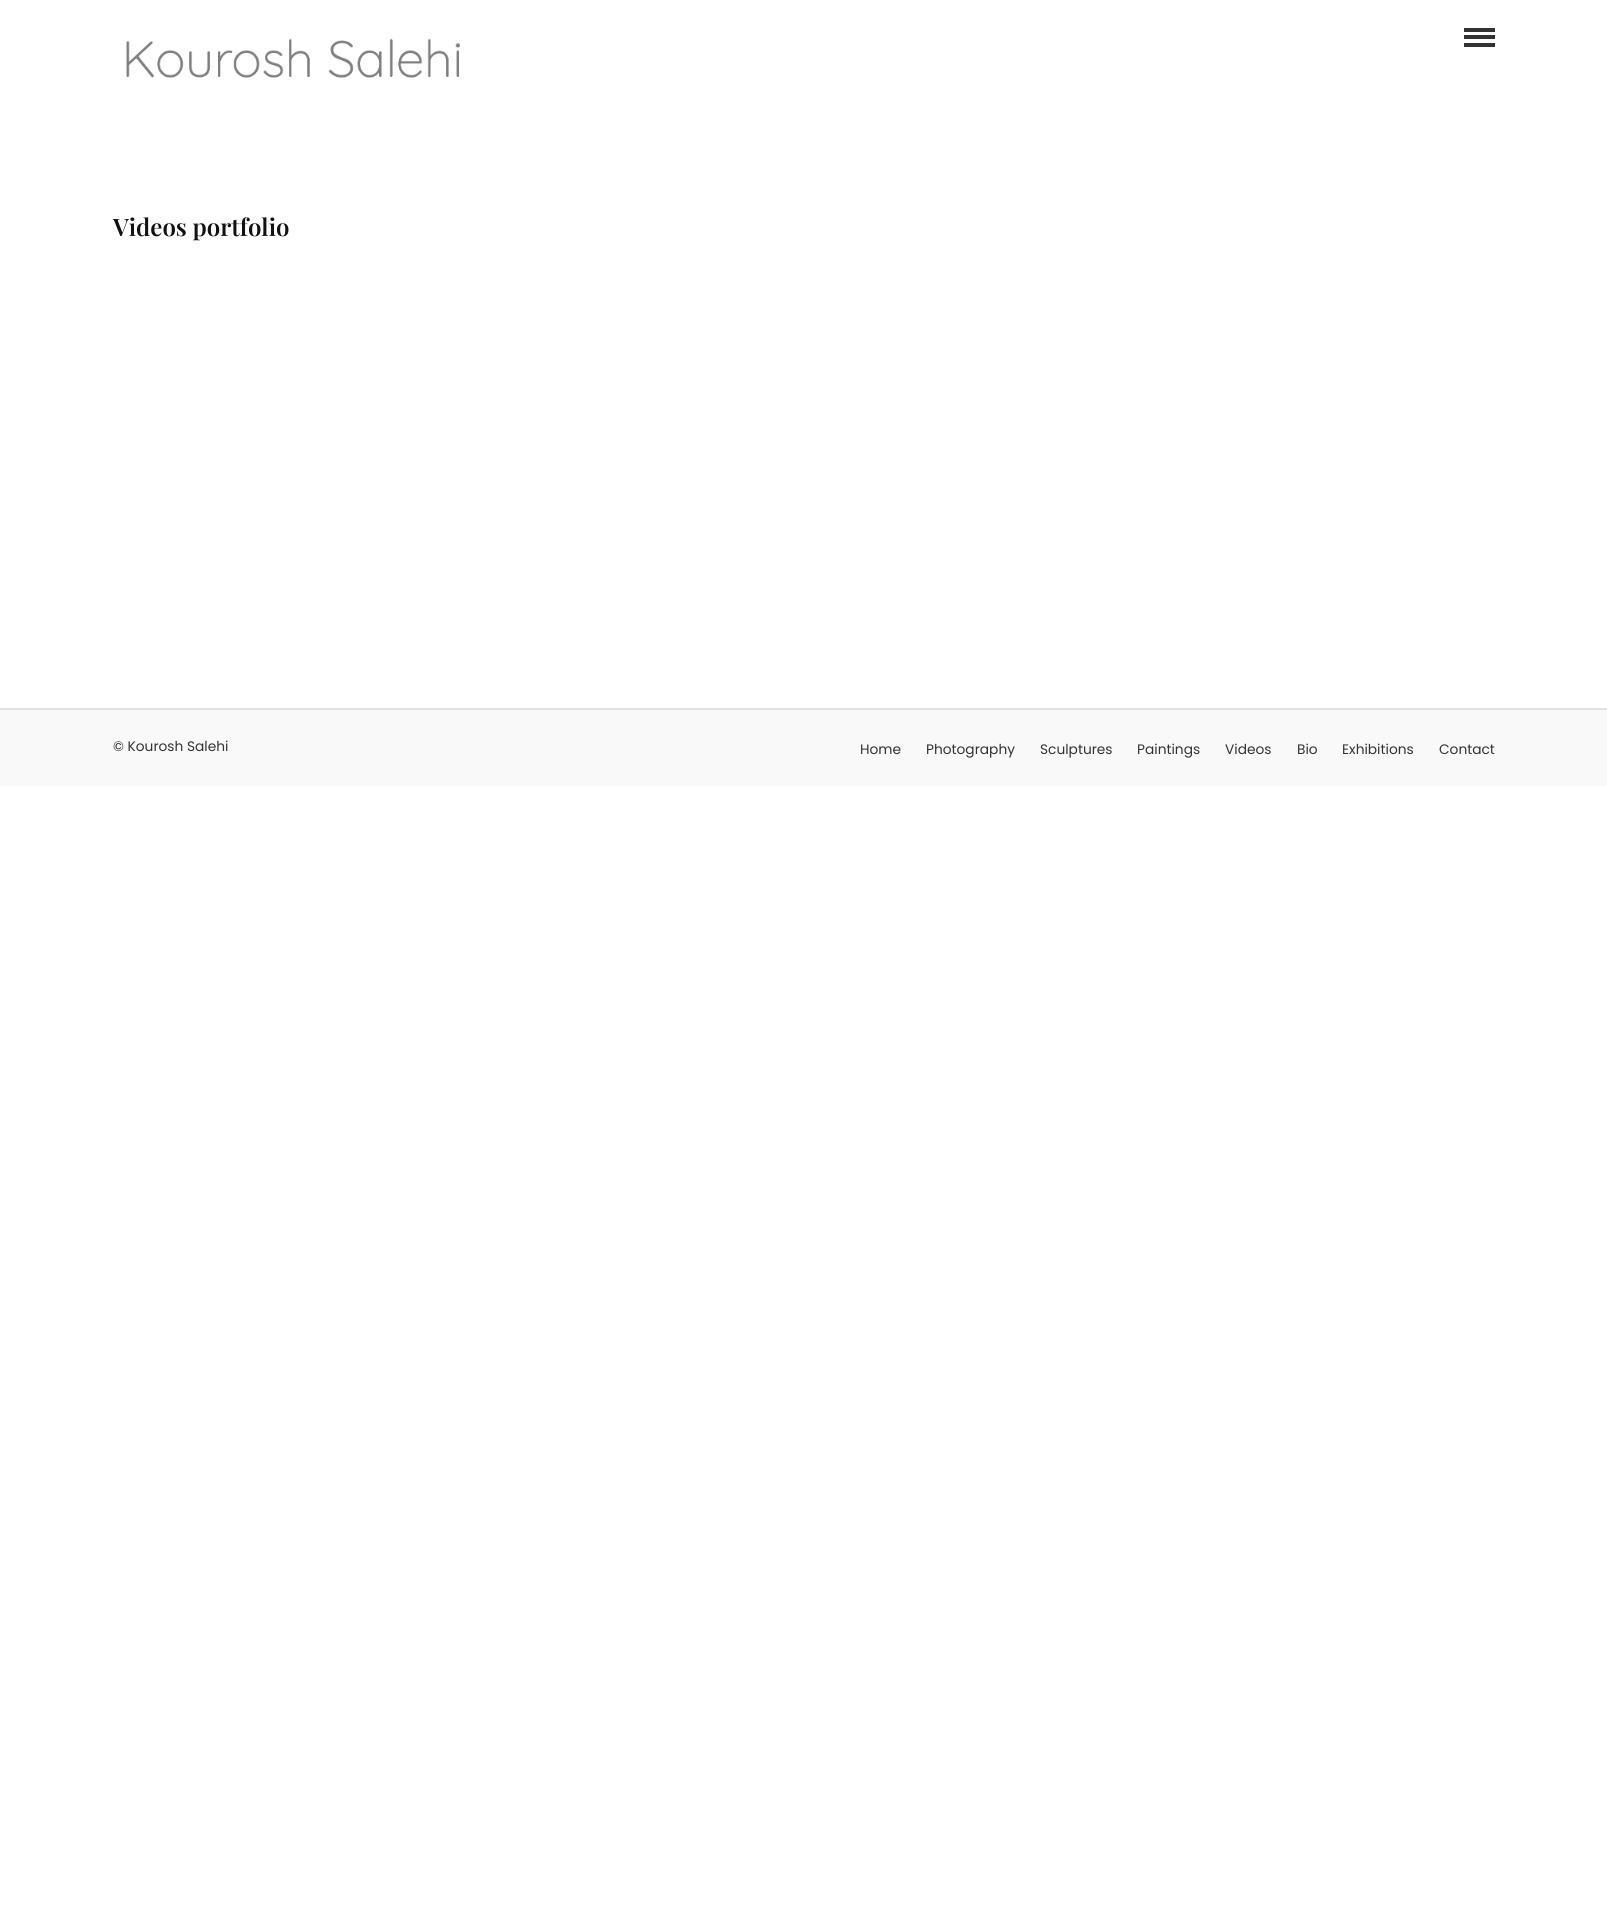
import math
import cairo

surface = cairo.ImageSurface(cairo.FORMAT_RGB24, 1607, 1911)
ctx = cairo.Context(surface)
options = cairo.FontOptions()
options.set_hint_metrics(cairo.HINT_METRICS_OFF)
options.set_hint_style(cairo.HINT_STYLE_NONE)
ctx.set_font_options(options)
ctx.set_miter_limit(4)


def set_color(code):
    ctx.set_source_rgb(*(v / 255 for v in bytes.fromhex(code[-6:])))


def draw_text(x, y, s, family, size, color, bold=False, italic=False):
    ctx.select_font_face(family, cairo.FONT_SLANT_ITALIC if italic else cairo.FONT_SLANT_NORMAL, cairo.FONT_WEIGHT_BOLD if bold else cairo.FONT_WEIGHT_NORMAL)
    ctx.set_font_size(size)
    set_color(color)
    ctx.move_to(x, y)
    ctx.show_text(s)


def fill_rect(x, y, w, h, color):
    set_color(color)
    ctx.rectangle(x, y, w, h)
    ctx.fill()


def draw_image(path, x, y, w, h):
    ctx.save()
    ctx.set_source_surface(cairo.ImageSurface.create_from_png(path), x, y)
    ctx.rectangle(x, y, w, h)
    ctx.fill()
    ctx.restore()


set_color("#ffffff")
ctx.paint()
draw_image("assets/img1.png", 126, 38, 334, 40)
fill_rect(1464, 28, 31, 4, "#333333")
fill_rect(1464, 35, 31, 4, "#333333")
fill_rect(1464, 43, 31, 4, "#333333")
draw_text(113, 236, "Videos portfolio", "Playfair Display SemiBold", 24, "#111111")
fill_rect(0, 710, 1607, 76, "#f9f9f9")
fill_rect(0, 708, 1607, 2, "#e1e1e1")
draw_text(113, 751, "© Kourosh Salehi", "Poppins", 13.75, "#333333")
draw_text(860, 754, "Home", "Poppins", 13.75, "#333333")
draw_text(926, 754, "Photography", "Poppins", 13.75, "#333333")
draw_text(1040, 754, "Sculptures", "Poppins", 13.75, "#333333")
draw_text(1137, 754, "Paintings", "Poppins", 13.75, "#333333")
draw_text(1225, 754, "Videos", "Poppins", 13.75, "#333333")
draw_text(1297, 754, "Bio", "Poppins", 13.75, "#333333")
draw_text(1342, 754, "Exhibitions", "Poppins", 13.75, "#333333")
draw_text(1439, 754, "Contact", "Poppins", 13.75, "#333333")
surface.write_to_png("output.png")
